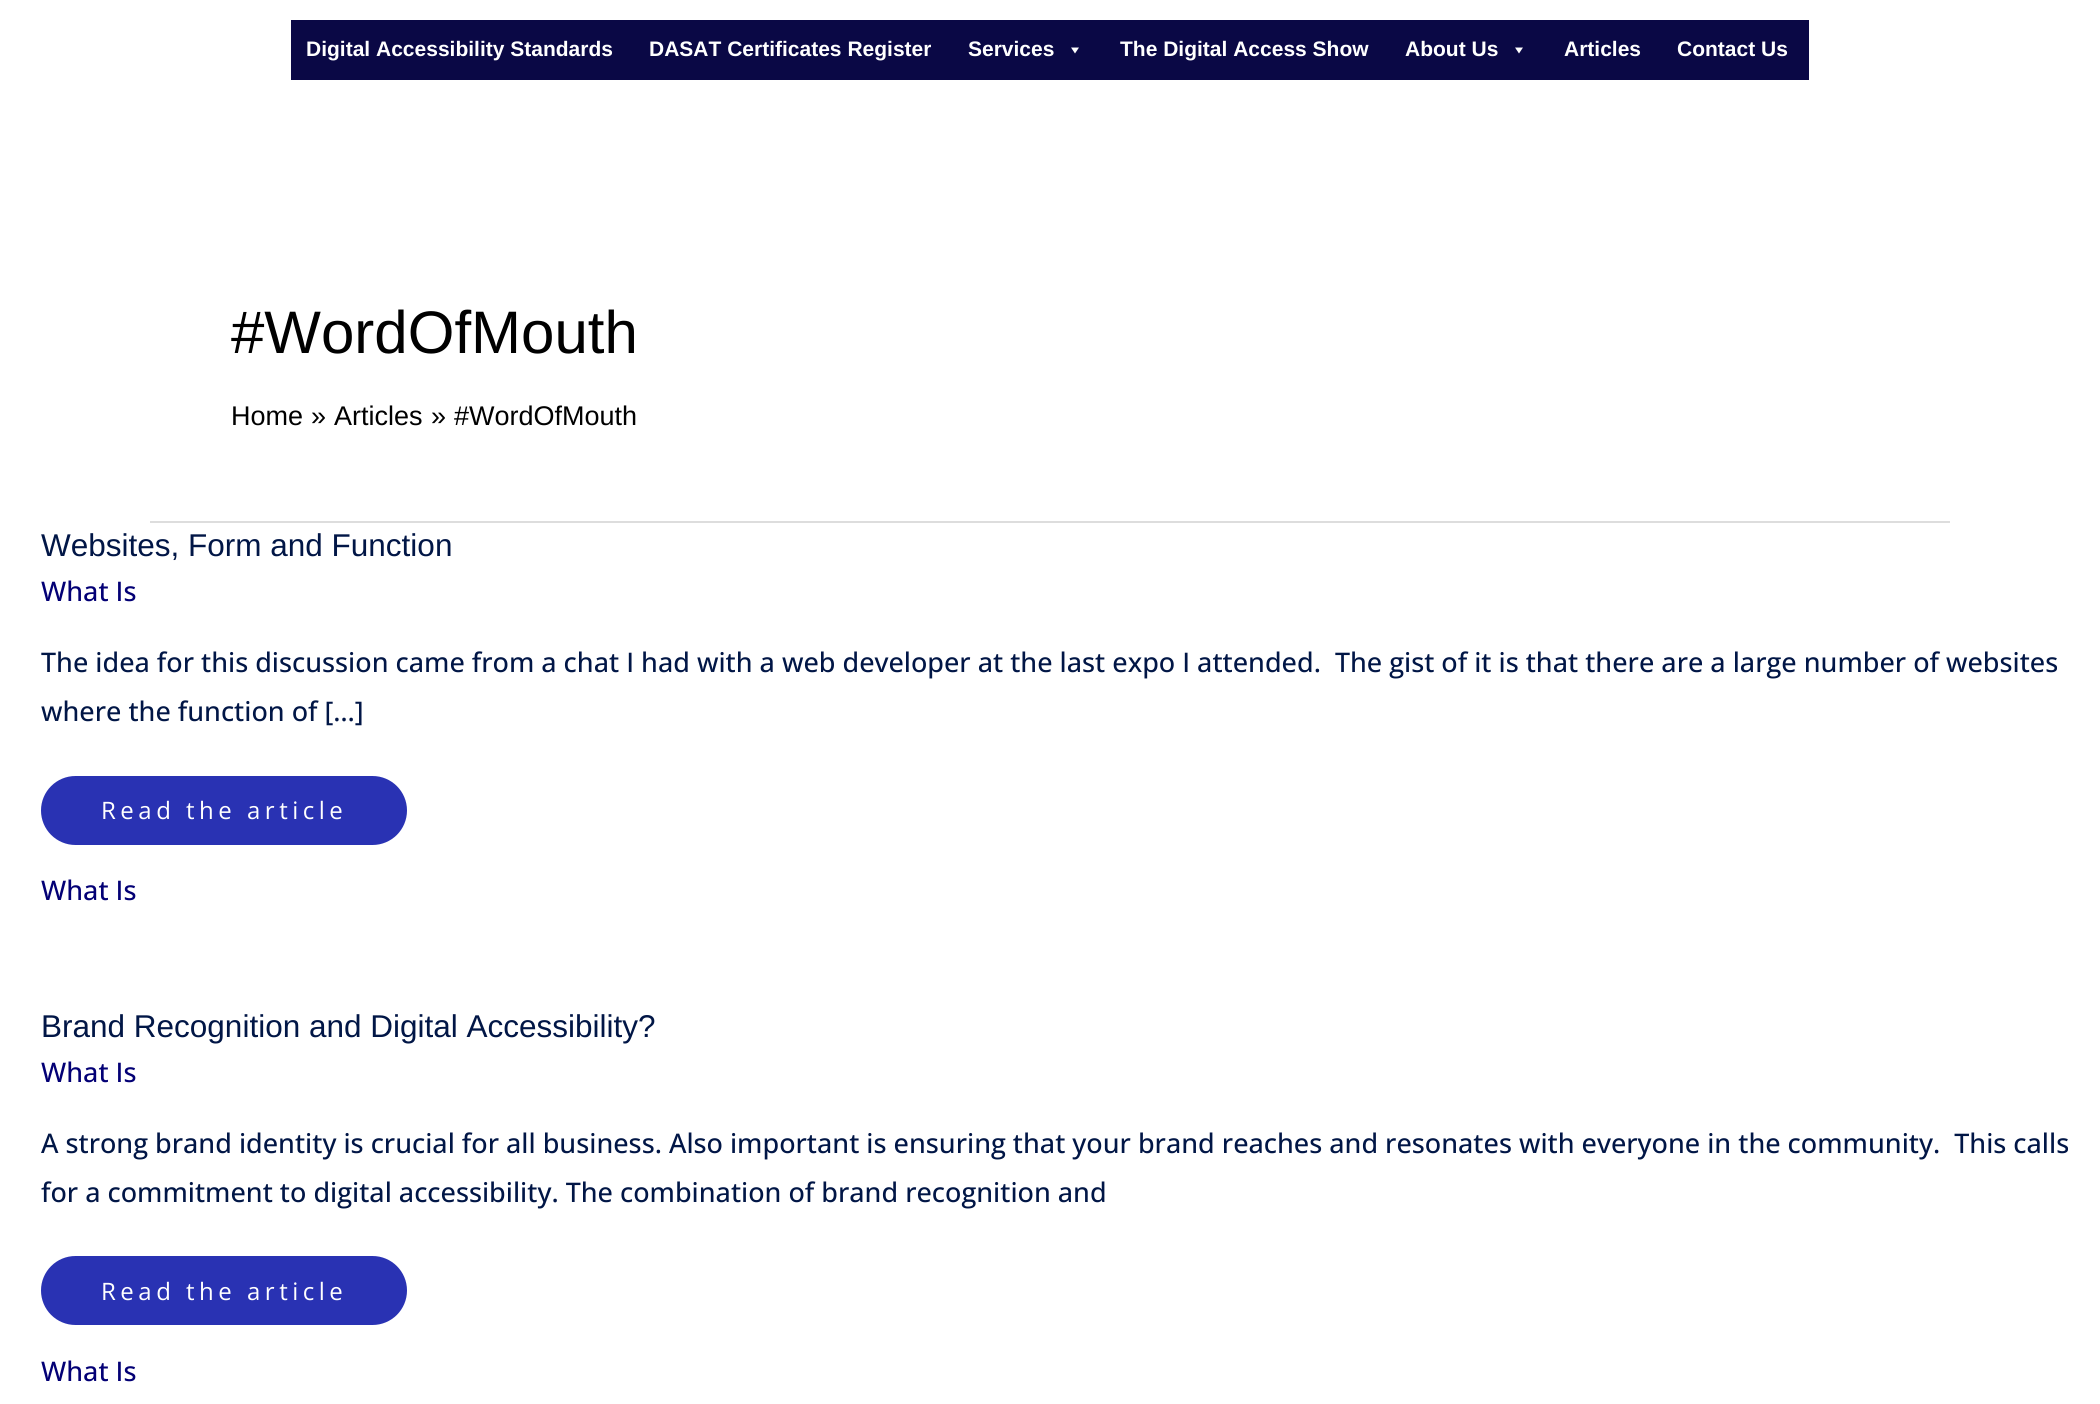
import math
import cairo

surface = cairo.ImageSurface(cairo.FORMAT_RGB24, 2100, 1404)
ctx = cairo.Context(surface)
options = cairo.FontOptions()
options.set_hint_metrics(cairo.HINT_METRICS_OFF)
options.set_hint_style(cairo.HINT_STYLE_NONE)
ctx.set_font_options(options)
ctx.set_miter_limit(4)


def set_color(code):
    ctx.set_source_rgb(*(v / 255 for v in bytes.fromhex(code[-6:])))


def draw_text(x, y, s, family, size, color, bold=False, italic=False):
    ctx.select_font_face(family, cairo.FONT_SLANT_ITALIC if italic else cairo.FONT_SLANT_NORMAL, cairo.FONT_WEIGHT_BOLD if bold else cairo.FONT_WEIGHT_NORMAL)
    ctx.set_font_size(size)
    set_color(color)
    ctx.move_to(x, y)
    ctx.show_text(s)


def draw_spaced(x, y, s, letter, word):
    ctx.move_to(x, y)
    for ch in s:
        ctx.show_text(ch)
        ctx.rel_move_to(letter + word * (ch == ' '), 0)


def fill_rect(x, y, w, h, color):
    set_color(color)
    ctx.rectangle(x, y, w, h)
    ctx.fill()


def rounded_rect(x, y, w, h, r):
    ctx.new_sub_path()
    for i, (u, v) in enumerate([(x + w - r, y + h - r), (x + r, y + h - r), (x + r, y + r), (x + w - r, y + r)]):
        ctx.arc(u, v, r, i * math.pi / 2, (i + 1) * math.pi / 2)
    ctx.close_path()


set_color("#ffffff")
ctx.paint()
fill_rect(291, 20, 1518, 60, "#0a0845")
draw_text(306, 56, "Digital Accessibility Standards", "Liberation Sans", 21, "#ffffff", bold=True)
draw_text(649, 56, "DASAT Certificates Register", "Liberation Sans", 21, "#ffffff", bold=True)
draw_text(968, 56, "Services", "Liberation Sans", 21, "#ffffff", bold=True)
ctx.new_path()
ctx.move_to(1079, 47.5)
ctx.line_to(1075, 53.5)
ctx.line_to(1071, 47.5)
ctx.close_path()
ctx.fill()
draw_text(1120, 56, "The Digital Access Show", "Liberation Sans", 21, "#ffffff", bold=True)
draw_text(1405, 56, "About Us", "Liberation Sans", 21, "#ffffff", bold=True)
ctx.new_path()
ctx.move_to(1523, 47.5)
ctx.line_to(1519, 53.5)
ctx.line_to(1515, 47.5)
ctx.close_path()
ctx.fill()
draw_text(1564, 56, "Articles", "Liberation Sans", 21, "#ffffff", bold=True)
draw_text(1677, 56, "Contact Us", "Liberation Sans", 21, "#ffffff", bold=True)
fill_rect(150, 521, 1800, 2, "#dddddd")
draw_text(231, 353, "#WordOfMouth", "Liberation Sans", 60, "#000000")
draw_text(231, 425, "Home", "Liberation Sans", 27, "#000000")
draw_text(311, 425, "»", "Liberation Sans", 27, "#000000")
draw_text(334, 425, "Articles", "Liberation Sans", 27, "#000000")
draw_text(431, 425, "»", "Liberation Sans", 27, "#000000")
draw_text(454, 425, "#WordOfMouth", "Liberation Sans", 27, "#000000")
draw_text(41, 556, "Websites, Form and Function", "Liberation Sans", 31.5, "#011646")
draw_text(41, 601, "What Is", "Open Sans Medium", 27, "#030075")
draw_text(41, 672, "The idea for this discussion came from a chat I had with a web developer at the last expo I attended.  The gist of it is that there are a large number of websites", "Open Sans Medium", 27, "#011646")
draw_text(41, 721, "where the function of […]", "Open Sans Medium", 27, "#011646")
set_color("#2932b3")
rounded_rect(41, 776, 366, 69, 34.5)
ctx.fill()
ctx.select_font_face("Open Sans")
ctx.set_font_size(24)
set_color("#ffffff")
draw_spaced(101, 819, "Read the article", 4.5, 0)
draw_text(41, 900, "What Is", "Open Sans Medium", 27, "#030075")
draw_text(41, 1037, "Brand Recognition and Digital Accessibility?", "Liberation Sans", 31.5, "#011646")
draw_text(41, 1082, "What Is", "Open Sans Medium", 27, "#030075")
draw_text(41, 1153, "A strong brand identity is crucial for all business. Also important is ensuring that your brand reaches and resonates with everyone in the community.  This calls", "Open Sans Medium", 27, "#011646")
draw_text(41, 1202, "for a commitment to digital accessibility. The combination of brand recognition and", "Open Sans Medium", 27, "#011646")
set_color("#2932b3")
rounded_rect(41, 1256, 366, 69, 34.5)
ctx.fill()
ctx.select_font_face("Open Sans")
ctx.set_font_size(24)
set_color("#ffffff")
draw_spaced(101, 1300, "Read the article", 4.5, 0)
draw_text(41, 1381, "What Is", "Open Sans Medium", 27, "#030075")
surface.write_to_png("output.png")
